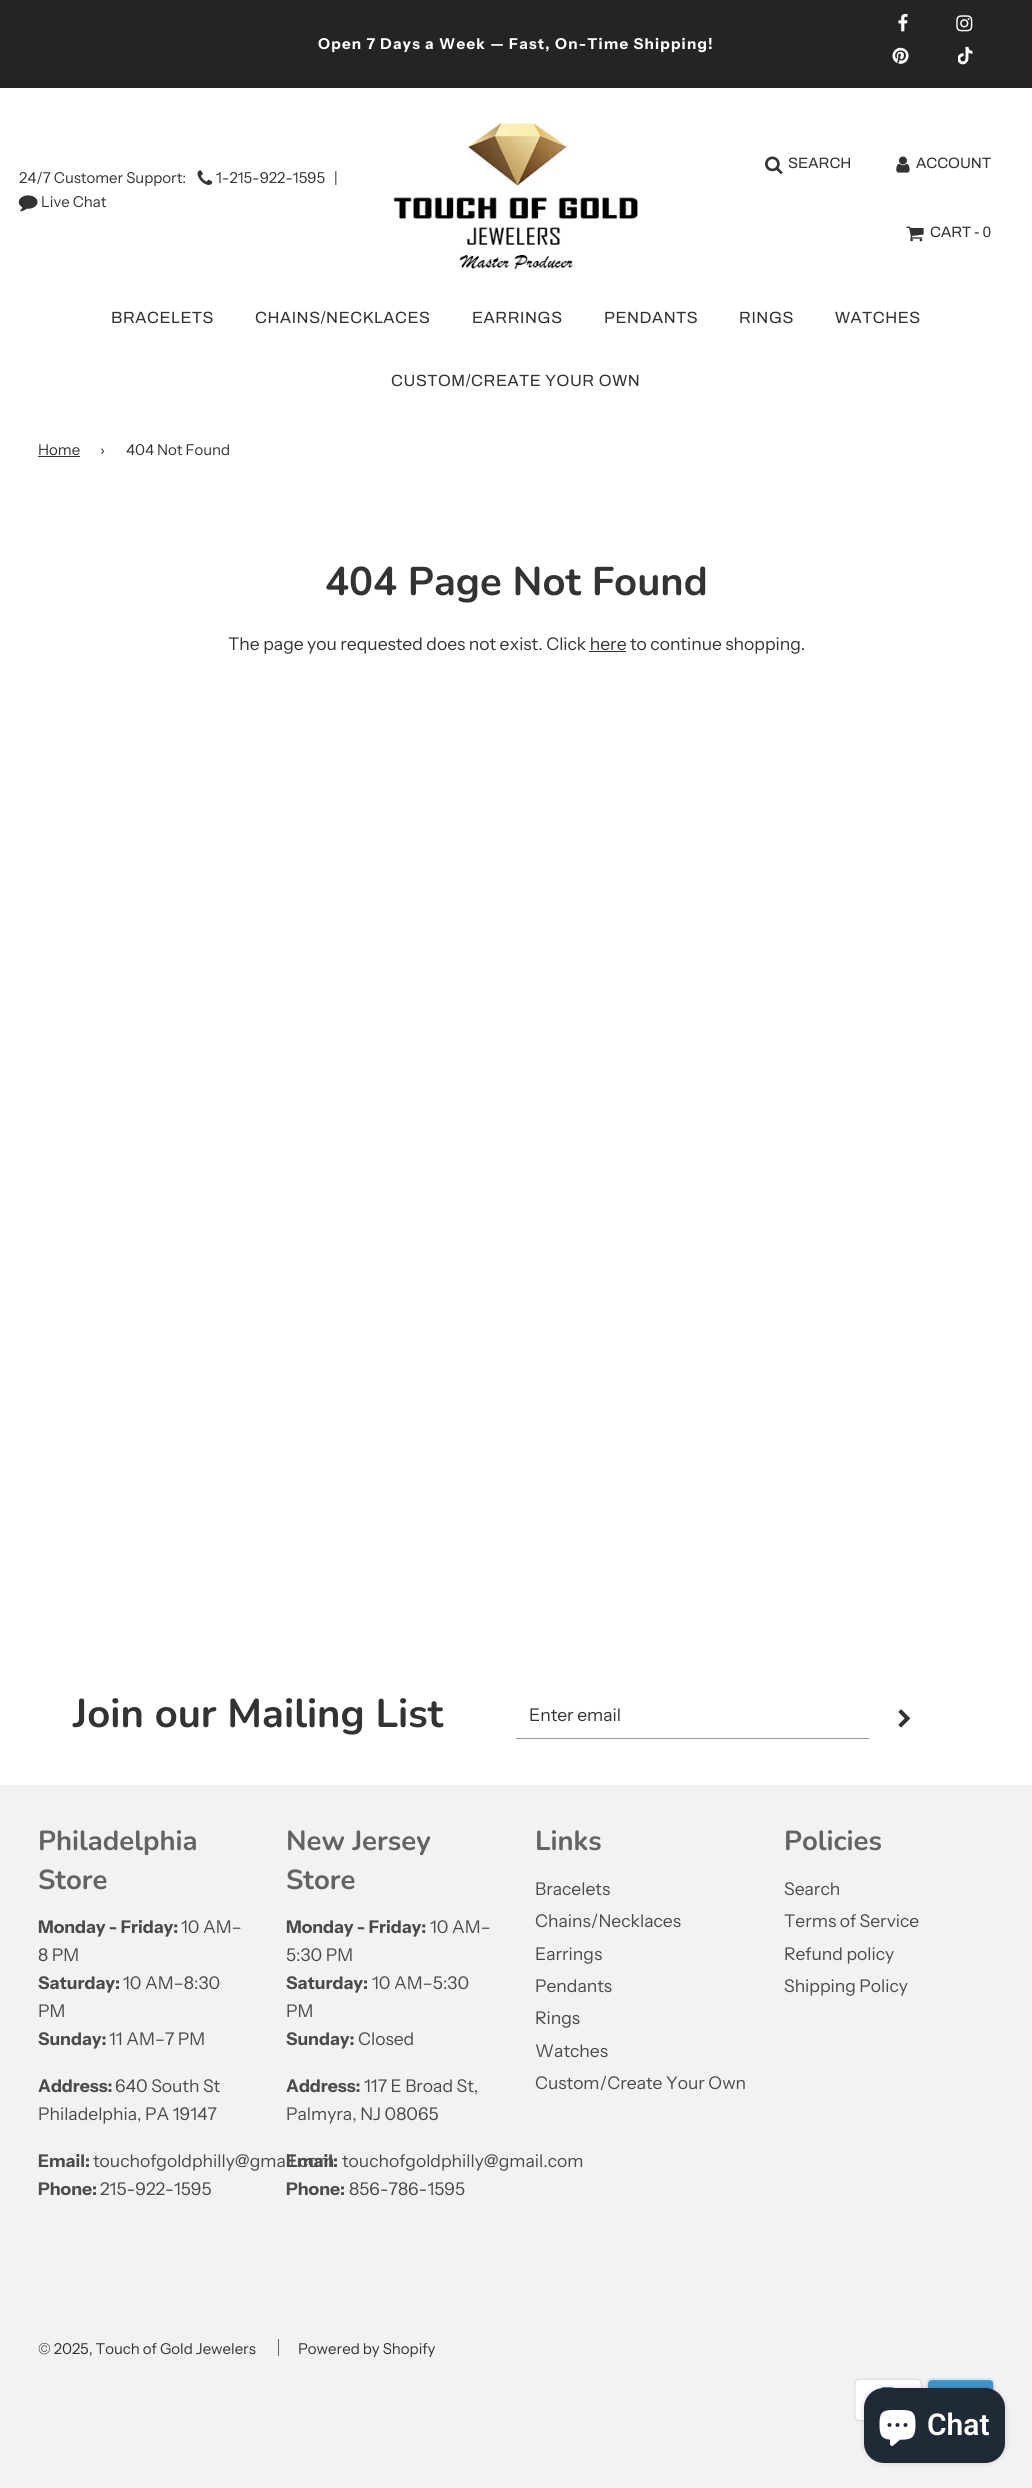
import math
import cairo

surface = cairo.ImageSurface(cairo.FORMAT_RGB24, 1032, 2488)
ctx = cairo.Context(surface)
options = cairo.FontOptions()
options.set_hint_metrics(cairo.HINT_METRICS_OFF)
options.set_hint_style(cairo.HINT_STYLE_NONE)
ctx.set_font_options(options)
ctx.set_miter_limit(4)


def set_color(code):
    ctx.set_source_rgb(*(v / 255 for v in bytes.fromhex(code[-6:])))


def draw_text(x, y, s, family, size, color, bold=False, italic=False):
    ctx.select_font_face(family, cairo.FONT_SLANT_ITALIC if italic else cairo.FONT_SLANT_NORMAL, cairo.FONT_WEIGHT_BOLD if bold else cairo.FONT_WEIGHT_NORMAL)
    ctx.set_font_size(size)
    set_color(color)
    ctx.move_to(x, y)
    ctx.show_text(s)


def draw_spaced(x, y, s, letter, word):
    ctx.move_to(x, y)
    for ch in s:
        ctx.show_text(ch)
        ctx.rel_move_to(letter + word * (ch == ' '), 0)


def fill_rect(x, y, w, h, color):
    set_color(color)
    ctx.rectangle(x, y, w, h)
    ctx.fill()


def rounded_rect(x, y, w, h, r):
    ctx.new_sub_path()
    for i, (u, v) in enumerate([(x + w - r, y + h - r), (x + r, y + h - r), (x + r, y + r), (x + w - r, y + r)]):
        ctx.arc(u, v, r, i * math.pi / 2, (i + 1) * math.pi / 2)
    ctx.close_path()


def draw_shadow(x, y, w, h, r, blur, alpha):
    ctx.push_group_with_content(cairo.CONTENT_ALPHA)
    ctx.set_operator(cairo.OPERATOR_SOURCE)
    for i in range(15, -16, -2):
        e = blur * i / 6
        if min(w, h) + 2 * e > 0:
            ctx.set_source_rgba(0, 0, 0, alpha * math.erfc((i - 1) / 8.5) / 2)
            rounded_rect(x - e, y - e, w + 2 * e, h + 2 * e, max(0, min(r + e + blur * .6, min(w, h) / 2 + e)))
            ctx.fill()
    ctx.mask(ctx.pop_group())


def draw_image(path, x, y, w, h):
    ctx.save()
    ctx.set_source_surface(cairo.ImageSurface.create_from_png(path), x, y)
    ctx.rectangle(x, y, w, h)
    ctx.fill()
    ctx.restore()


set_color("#ffffff")
ctx.paint()
fill_rect(0, 0, 1032, 88, "#242424")
ctx.select_font_face("Instrument Sans", cairo.FONT_SLANT_NORMAL, cairo.FONT_WEIGHT_BOLD)
ctx.set_font_size(15)
set_color("#ffffff")
draw_spaced(318, 49, "Open 7 Days a Week — Fast, On-Time Shipping!", 1.25, 0)
draw_image("assets/img1.png", 898, 13, 10, 19)
draw_image("assets/img2.png", 956, 15, 17, 17)
draw_image("assets/img3.png", 892, 47, 17, 17)
draw_image("assets/img4.png", 958, 46, 15, 19)
draw_text(19, 183, "24/7 Customer Support:", "Instrument Sans", 15, "#333333")
draw_image("assets/img5.png", 197, 170, 16, 15)
draw_text(216, 183, "1-215-922-1595   |", "Instrument Sans", 15, "#333333")
draw_image("assets/img6.png", 18, 195, 20, 17)
draw_text(41, 207, "Live Chat", "Instrument Sans", 15, "#333333")
draw_image("assets/img7.png", 392, 122, 246, 148)
draw_image("assets/img8.png", 765, 156, 18, 18)
draw_text(788, 168, "SEARCH", "Archivo", 15, "#333333")
draw_image("assets/img9.png", 896, 156, 14, 17)
draw_text(916, 168, "ACCOUNT", "Archivo", 15, "#333333")
draw_image("assets/img10.png", 906, 226, 18, 16)
draw_text(930, 237, "CART - 0", "Archivo", 15, "#333333")
ctx.set_font_size(16.25)
draw_spaced(111, 323, "BRACELETS", 0.6, 0)
draw_spaced(255, 323, "CHAINS/NECKLACES", 0.6, 0)
draw_spaced(472, 323, "EARRINGS", 0.6, 0)
draw_spaced(604, 323, "PENDANTS", 0.6, 0)
draw_spaced(739, 323, "RINGS", 0.6, 0)
draw_spaced(835, 323, "WATCHES", 0.6, 0)
draw_spaced(391, 386, "CUSTOM/CREATE YOUR OWN", 0.6, 0)
draw_text(38, 455, "Home", "Instrument Sans", 15, "#333333")
fill_rect(38, 456, 42, 1, "#333333")
draw_text(100, 455, "›", "Instrument Sans", 15, "#333333")
draw_text(126, 455, "404 Not Found", "Instrument Sans", 15, "#333333")
draw_text(325, 595, "404 Page Not Found", "Nunito", 40, "#333333", bold=True)
draw_text(228, 650, "The page you requested does not exist. Click here to continue shopping.", "Instrument Sans", 17.5, "#333333")
fill_rect(589, 651, 37, 1, "#333333")
draw_text(73, 1727, "Join our Mailing List", "Nunito", 40, "#333333", bold=True)
fill_rect(516, 1738, 353, 1, "#999999")
draw_text(529, 1721, "Enter email", "Instrument Sans", 17.5, "#333333")
draw_image("assets/img11.png", 898, 1709, 12, 19)
fill_rect(0, 1785, 1032, 703, "#f2f2f2")
draw_text(38, 1850, "Philadelphia", "Nunito", 27.5, "#636363", bold=True)
draw_text(38, 1889, "Store", "Nunito", 27.5, "#636363", bold=True)
draw_text(38, 1933, "Monday - Friday:", "Instrument Sans", 17.5, "#4a4a4a", bold=True)
draw_text(181, 1933, "10 AM–", "Instrument Sans", 17.5, "#4a4a4a")
draw_text(38, 1961, "8 PM", "Instrument Sans", 17.5, "#4a4a4a")
draw_text(38, 1989, "Saturday:", "Instrument Sans", 17.5, "#4a4a4a", bold=True)
draw_text(123, 1989, "10 AM–8:30", "Instrument Sans", 17.5, "#4a4a4a")
draw_text(38, 2017, "PM", "Instrument Sans", 17.5, "#4a4a4a")
draw_text(38, 2045, "Sunday:", "Instrument Sans", 17.5, "#4a4a4a", bold=True)
draw_text(109, 2045, "11 AM–7 PM", "Instrument Sans", 17.5, "#4a4a4a")
draw_text(38, 2092, "Address:", "Instrument Sans", 17.5, "#4a4a4a", bold=True)
draw_text(115, 2092, "640 South St", "Instrument Sans", 17.5, "#4a4a4a")
draw_text(38, 2120, "Philadelphia, PA 19147", "Instrument Sans", 17.5, "#4a4a4a")
draw_text(38, 2167, "Email:", "Instrument Sans", 17.5, "#4a4a4a", bold=True)
draw_text(93, 2167, "touchofgoldphilly@gmail.com", "Instrument Sans", 17.5, "#4a4a4a")
draw_text(38, 2195, "Phone:", "Instrument Sans", 17.5, "#4a4a4a", bold=True)
draw_text(100, 2195, "215-922-1595", "Instrument Sans", 17.5, "#4a4a4a")
draw_text(286, 1850, "New Jersey", "Nunito", 27.5, "#636363", bold=True)
draw_text(286, 1889, "Store", "Nunito", 27.5, "#636363", bold=True)
draw_text(286, 1933, "Monday - Friday:", "Instrument Sans", 17.5, "#4a4a4a", bold=True)
draw_text(430, 1933, "10 AM–", "Instrument Sans", 17.5, "#4a4a4a")
draw_text(286, 1961, "5:30 PM", "Instrument Sans", 17.5, "#4a4a4a")
draw_text(286, 1989, "Saturday:", "Instrument Sans", 17.5, "#4a4a4a", bold=True)
draw_text(372, 1989, "10 AM–5:30", "Instrument Sans", 17.5, "#4a4a4a")
draw_text(286, 2017, "PM", "Instrument Sans", 17.5, "#4a4a4a")
draw_text(286, 2045, "Sunday:", "Instrument Sans", 17.5, "#4a4a4a", bold=True)
draw_text(358, 2045, "Closed", "Instrument Sans", 17.5, "#4a4a4a")
draw_text(286, 2092, "Address:", "Instrument Sans", 17.5, "#4a4a4a", bold=True)
draw_text(364, 2092, "117 E Broad St,", "Instrument Sans", 17.5, "#4a4a4a")
draw_text(286, 2120, "Palmyra, NJ 08065", "Instrument Sans", 17.5, "#4a4a4a")
draw_text(286, 2167, "Email:", "Instrument Sans", 17.5, "#4a4a4a", bold=True)
draw_text(342, 2167, "touchofgoldphilly@gmail.com", "Instrument Sans", 17.5, "#4a4a4a")
draw_text(286, 2195, "Phone:", "Instrument Sans", 17.5, "#4a4a4a", bold=True)
draw_text(349, 2195, "856-786-1595", "Instrument Sans", 17.5, "#4a4a4a")
draw_text(535, 1850, "Links", "Nunito", 27.5, "#636363", bold=True)
draw_text(535, 1895, "Bracelets", "Instrument Sans", 17.5, "#4a4a4a")
draw_text(535, 1927, "Chains/Necklaces", "Instrument Sans", 17.5, "#4a4a4a")
draw_text(535, 1960, "Earrings", "Instrument Sans", 17.5, "#4a4a4a")
draw_text(535, 1992, "Pendants", "Instrument Sans", 17.5, "#4a4a4a")
draw_text(535, 2024, "Rings", "Instrument Sans", 17.5, "#4a4a4a")
draw_text(535, 2057, "Watches", "Instrument Sans", 17.5, "#4a4a4a")
draw_text(535, 2089, "Custom/Create Your Own", "Instrument Sans", 17.5, "#4a4a4a")
draw_text(784, 1850, "Policies", "Nunito", 27.5, "#636363", bold=True)
draw_text(784, 1895, "Search", "Instrument Sans", 17.5, "#4a4a4a")
draw_text(784, 1927, "Terms of Service", "Instrument Sans", 17.5, "#4a4a4a")
draw_text(784, 1960, "Refund policy", "Instrument Sans", 17.5, "#4a4a4a")
draw_text(784, 1992, "Shipping Policy", "Instrument Sans", 17.5, "#4a4a4a")
draw_text(38, 2354, "© 2025, Touch of Gold Jewelers", "Instrument Sans", 15, "#333333")
fill_rect(278, 2339, 1, 17, "#636363")
draw_text(298, 2354, "Powered by Shopify", "Instrument Sans", 15, "#333333")
draw_image("assets/img12.png", 854, 2378, 69, 44)
draw_image("assets/img13.png", 926, 2378, 69, 13)
set_color("#000000")
draw_shadow(864, 2388, 141, 75, 20, 3, 0.15)
set_color("#202a36")
rounded_rect(864, 2388, 141, 75, 20)
ctx.fill()
draw_image("assets/img14.png", 879, 2410, 37, 36)
draw_text(927, 2435, "Chat", "Roboto SemiBold", 30, "#ffffff")
surface.write_to_png("output.png")
